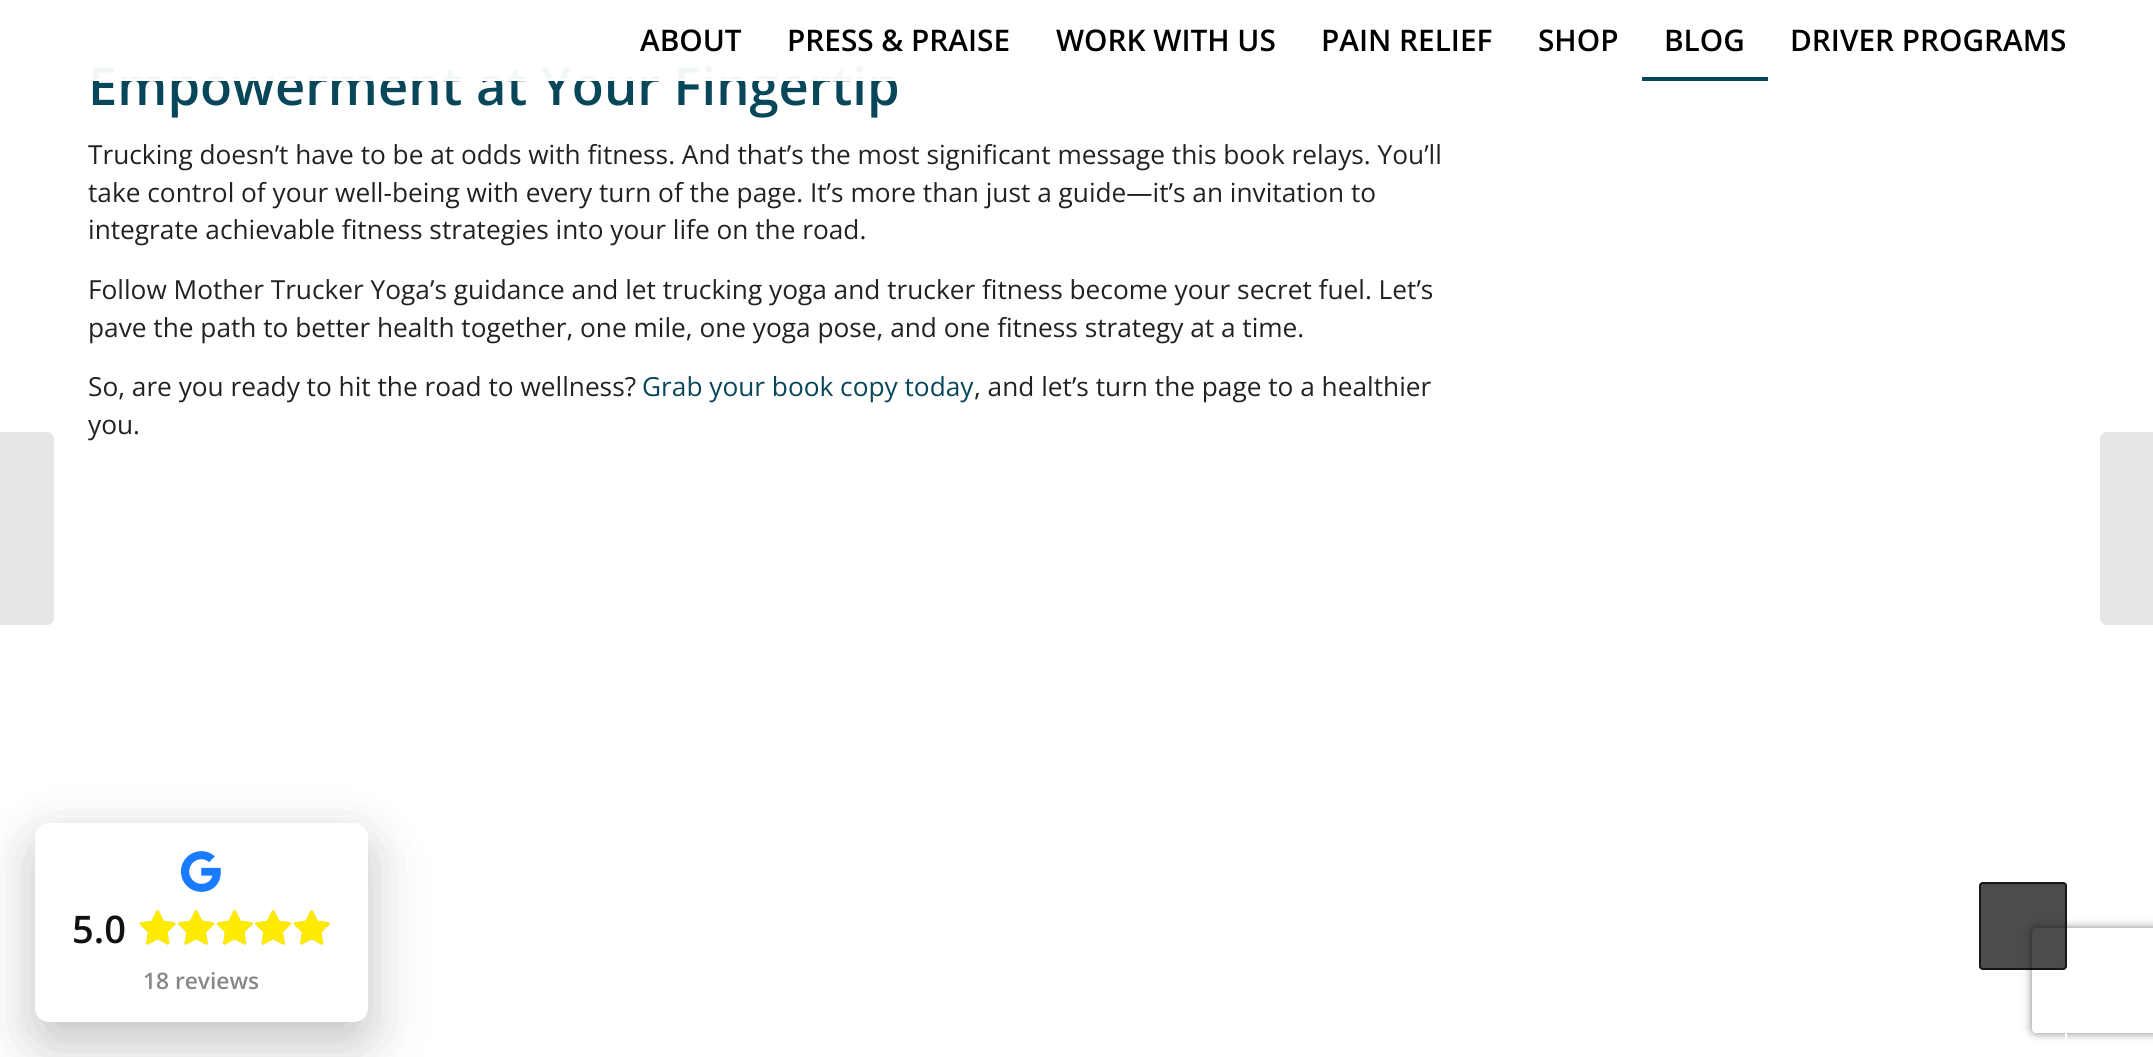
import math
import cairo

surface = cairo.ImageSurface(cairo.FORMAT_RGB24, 2153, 1057)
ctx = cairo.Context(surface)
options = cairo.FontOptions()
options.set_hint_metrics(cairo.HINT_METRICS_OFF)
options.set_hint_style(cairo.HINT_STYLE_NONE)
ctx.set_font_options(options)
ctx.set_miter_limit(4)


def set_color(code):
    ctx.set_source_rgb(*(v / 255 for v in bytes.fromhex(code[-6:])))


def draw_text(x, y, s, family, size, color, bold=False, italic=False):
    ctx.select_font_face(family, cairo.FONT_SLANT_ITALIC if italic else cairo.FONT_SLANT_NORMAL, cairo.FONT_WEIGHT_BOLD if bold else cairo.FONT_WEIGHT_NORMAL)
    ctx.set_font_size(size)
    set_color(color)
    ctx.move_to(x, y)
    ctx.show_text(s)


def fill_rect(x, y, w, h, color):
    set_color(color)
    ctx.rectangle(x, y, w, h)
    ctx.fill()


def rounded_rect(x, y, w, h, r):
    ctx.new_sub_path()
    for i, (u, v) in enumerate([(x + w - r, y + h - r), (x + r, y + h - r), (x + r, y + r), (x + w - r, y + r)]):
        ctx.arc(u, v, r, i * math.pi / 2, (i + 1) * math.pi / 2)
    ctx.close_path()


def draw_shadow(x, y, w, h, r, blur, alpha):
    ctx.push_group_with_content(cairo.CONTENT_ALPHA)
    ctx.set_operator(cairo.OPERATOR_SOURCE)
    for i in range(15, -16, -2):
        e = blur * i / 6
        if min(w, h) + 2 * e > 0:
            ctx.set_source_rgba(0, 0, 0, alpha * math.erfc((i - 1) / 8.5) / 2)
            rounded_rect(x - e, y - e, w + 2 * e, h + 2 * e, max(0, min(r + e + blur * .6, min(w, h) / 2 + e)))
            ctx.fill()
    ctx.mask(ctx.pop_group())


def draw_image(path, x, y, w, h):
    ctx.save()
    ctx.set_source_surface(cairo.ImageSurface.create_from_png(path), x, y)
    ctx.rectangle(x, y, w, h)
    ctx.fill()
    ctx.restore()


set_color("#ffffff")
ctx.paint()
draw_text(88, 105, "Empowerment at Your Fingertip", "Open Sans SemiBold", 52.5, "#08465a")
fill_rect(92, 79, 803, 2, "#ffffff")
draw_text(640, 51, "ABOUT", "Open Sans SemiBold", 29.75, "#000000")
draw_text(787, 51, "PRESS & PRAISE", "Open Sans SemiBold", 29.75, "#000000")
draw_text(1056, 51, "WORK WITH US", "Open Sans SemiBold", 29.75, "#000000")
draw_text(1321, 51, "PAIN RELIEF", "Open Sans SemiBold", 29.75, "#000000")
draw_text(1538, 51, "SHOP", "Open Sans SemiBold", 29.75, "#000000")
ctx.save()
ctx.set_fill_rule(cairo.FILL_RULE_EVEN_ODD)
ctx.new_path()
ctx.move_to(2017, 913)
ctx.line_to(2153, 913)
ctx.line_to(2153, 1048)
ctx.line_to(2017, 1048)
ctx.close_path()
ctx.move_to(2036, 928)
ctx.line_to(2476, 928)
ctx.curve_to(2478, 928, 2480, 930, 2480, 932)
ctx.line_to(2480, 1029)
ctx.curve_to(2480, 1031, 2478, 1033, 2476, 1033)
ctx.line_to(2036, 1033)
ctx.curve_to(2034, 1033, 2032, 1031, 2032, 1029)
ctx.line_to(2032, 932)
ctx.curve_to(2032, 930, 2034, 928, 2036, 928)
ctx.close_path()
ctx.clip()
set_color("#808080")
draw_shadow(2032, 928, 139, 105, 4, 4.5, 1)
ctx.restore()
ctx.rectangle(1623, -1, 443, 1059)
set_color("#ffffff")
ctx.stroke()
draw_text(1664, 51, "BLOG", "Open Sans SemiBold", 29.75, "#000000")
fill_rect(1642, 77, 126, 4, "#08465a")
draw_text(1790, 51, "DRIVER PROGRAMS", "Open Sans SemiBold", 29.75, "#000000")
ctx.set_source_rgba(1, 1, 1, 0.95)
ctx.rectangle(92, 65, 801, 14)
ctx.fill()
draw_text(88, 164, "Trucking doesn’t have to be at odds with fitness. And that’s the most significant message this book relays. You’ll", "Open Sans", 26.25, "#222222")
draw_text(88, 202, "take control of your well-being with every turn of the page. It’s more than just a guide—it’s an invitation to", "Open Sans", 26.25, "#222222")
draw_text(88, 239, "integrate achievable fitness strategies into your life on the road.", "Open Sans", 26.25, "#222222")
draw_text(88, 299, "Follow Mother Trucker Yoga’s guidance and let trucking yoga and trucker fitness become your secret fuel. Let’s", "Open Sans", 26.25, "#222222")
draw_text(88, 337, "pave the path to better health together, one mile, one yoga pose, and one fitness strategy at a time.", "Open Sans", 26.25, "#222222")
draw_text(88, 396, "So, are you ready to hit the road to wellness?", "Open Sans", 26.25, "#222222")
draw_text(642, 396, "Grab your book copy today", "Open Sans", 26.25, "#08465a")
draw_text(974, 396, ", and let’s turn the page to a healthier", "Open Sans", 26.25, "#222222")
ctx.save()
ctx.rectangle(88, 0, 1445, 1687)
ctx.clip()
draw_text(88, 434, "you.", "Open Sans", 26.25, "#222222")
ctx.restore()
set_color("#e6e6e6")
ctx.new_path()
ctx.move_to(0, 432)
ctx.line_to(47, 432)
ctx.curve_to(51, 432, 54, 435, 54, 439)
ctx.line_to(54, 618)
ctx.curve_to(54, 622, 51, 625, 47, 625)
ctx.line_to(0, 625)
ctx.close_path()
ctx.fill()
ctx.new_path()
ctx.move_to(2107, 432)
ctx.line_to(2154, 432)
ctx.line_to(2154, 625)
ctx.line_to(2107, 625)
ctx.curve_to(2103, 625, 2100, 622, 2100, 618)
ctx.line_to(2100, 439)
ctx.curve_to(2100, 435, 2103, 432, 2107, 432)
ctx.close_path()
ctx.fill()
ctx.set_source_rgba(0, 0, 0, 0.7)
rounded_rect(1979, 882, 88, 88, 4)
ctx.fill()
rounded_rect(1980, 883, 86, 86, 3)
ctx.stroke()
set_color("#000000")
draw_shadow(35, 840, 333, 200, 14, 26, 0.15)
draw_shadow(35, 849, 333, 199, 14, 35, 0.1)
set_color("#ffffff")
rounded_rect(35, 823, 333, 199, 14)
ctx.fill()
draw_image("assets/img1.png", 180, 851, 41, 41)
draw_text(72, 943, "5.0", "Open Sans SemiBold", 38, "#111111")
draw_image("assets/img2.png", 139, 910, 37, 35)
draw_image("assets/img3.png", 139, 910, 37, 35)
draw_image("assets/img4.png", 178, 910, 37, 35)
draw_image("assets/img5.png", 178, 910, 37, 35)
draw_image("assets/img2.png", 216, 910, 37, 35)
draw_image("assets/img3.png", 216, 910, 37, 35)
draw_image("assets/img4.png", 255, 910, 37, 35)
draw_image("assets/img5.png", 255, 910, 37, 35)
draw_image("assets/img2.png", 293, 910, 37, 35)
draw_image("assets/img3.png", 293, 910, 37, 35)
draw_text(143, 989, "18 reviews", "Open Sans SemiBold", 22.75, "#888888")
surface.write_to_png("output.png")
